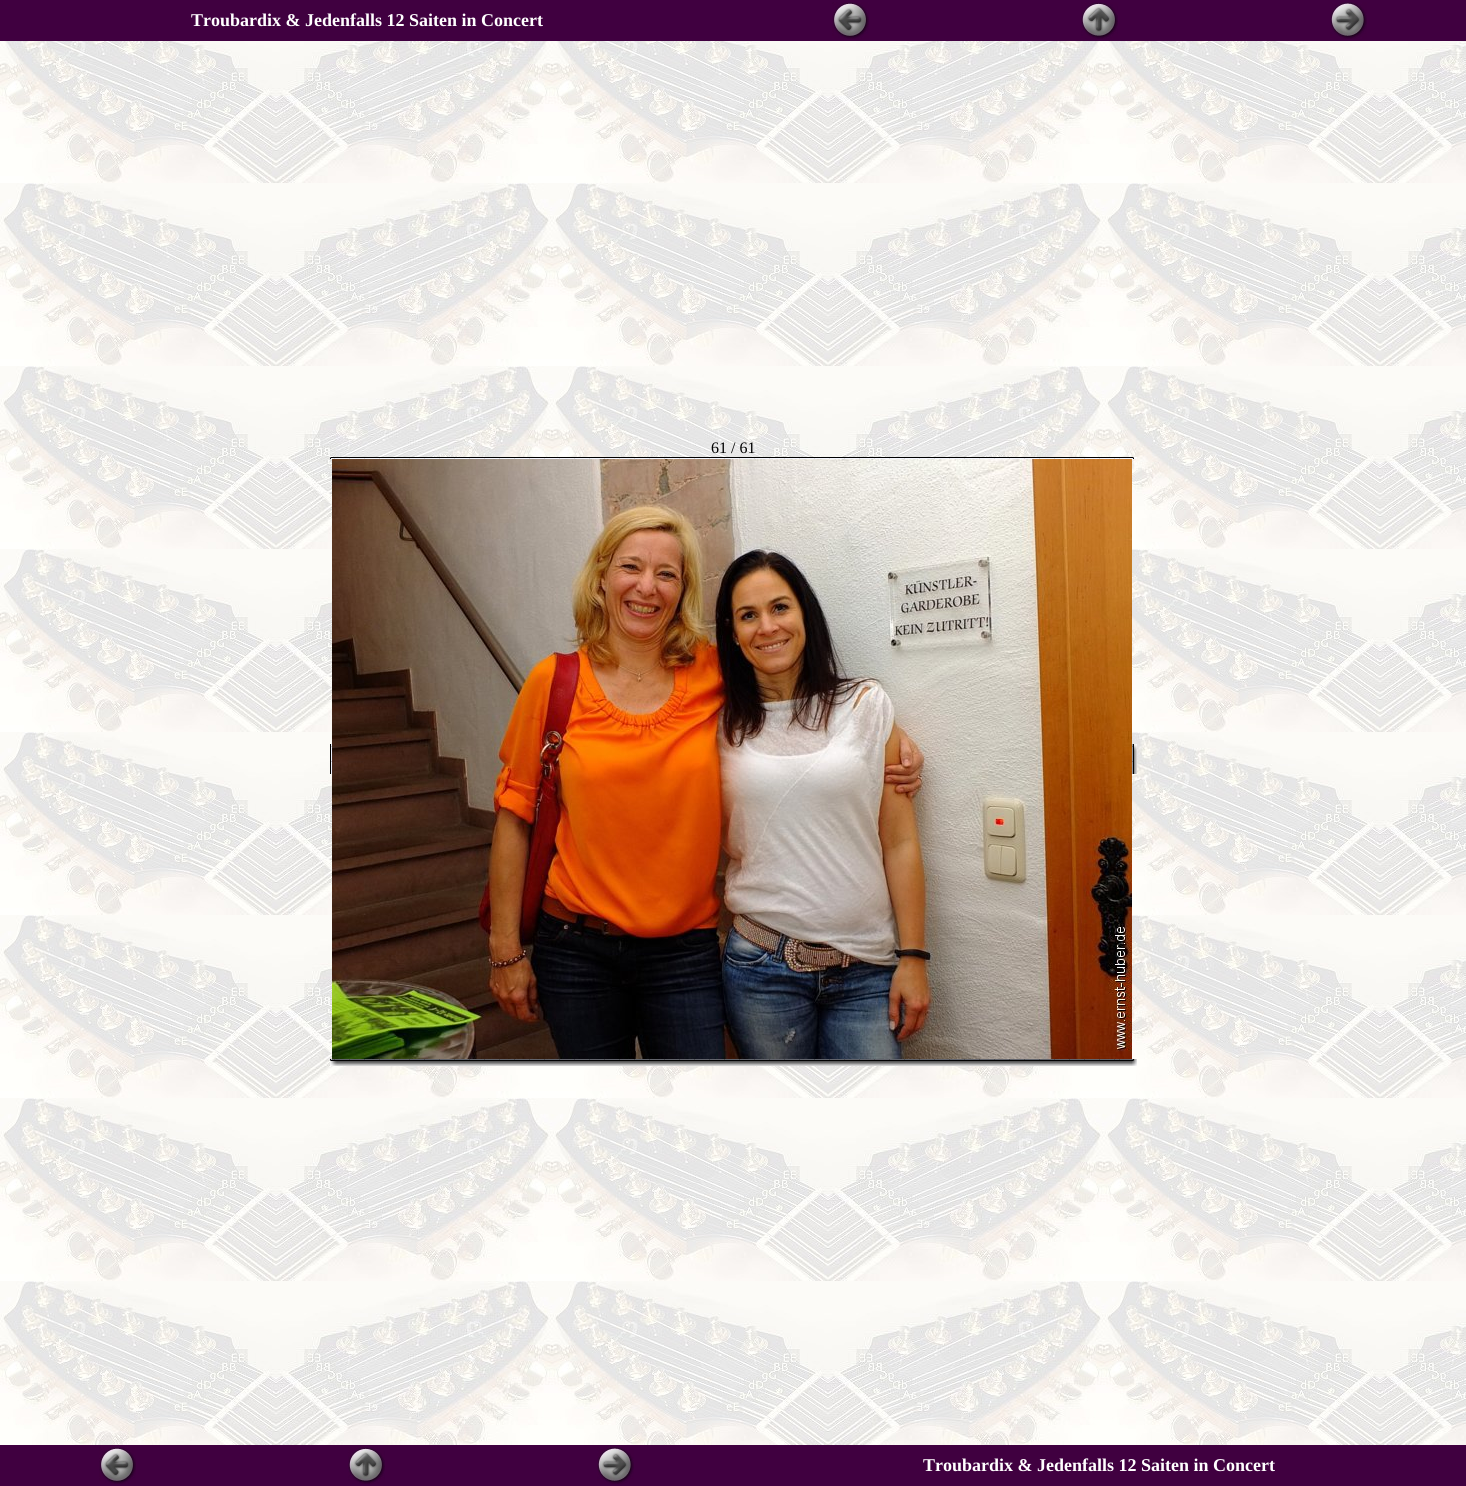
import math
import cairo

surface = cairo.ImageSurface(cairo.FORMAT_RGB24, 1466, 1486)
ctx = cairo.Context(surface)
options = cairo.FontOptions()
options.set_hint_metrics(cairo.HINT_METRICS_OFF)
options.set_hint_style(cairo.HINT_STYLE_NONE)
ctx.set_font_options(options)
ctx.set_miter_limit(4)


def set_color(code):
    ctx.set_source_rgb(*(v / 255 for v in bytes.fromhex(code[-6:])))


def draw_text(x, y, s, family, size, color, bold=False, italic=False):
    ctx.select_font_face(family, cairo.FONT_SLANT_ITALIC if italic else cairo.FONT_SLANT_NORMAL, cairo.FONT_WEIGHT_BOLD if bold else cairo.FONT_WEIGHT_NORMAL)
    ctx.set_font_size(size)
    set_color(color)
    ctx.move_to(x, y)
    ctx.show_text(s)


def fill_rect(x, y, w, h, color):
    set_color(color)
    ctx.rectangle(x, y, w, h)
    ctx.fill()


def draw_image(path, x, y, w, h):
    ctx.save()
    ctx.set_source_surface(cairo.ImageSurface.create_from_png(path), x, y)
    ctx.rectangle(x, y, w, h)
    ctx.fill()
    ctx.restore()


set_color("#ffffff")
ctx.paint()
draw_image("assets/img1.png", 0, 41, 1466, 1404)
fill_rect(0, 0, 1466, 41, "#400040")
draw_text(191, 26, "Troubardix & Jedenfalls 12 Saiten in Concert", "Liberation Serif", 18, "#ffffff", bold=True)
draw_image("assets/img2.png", 832, 2, 37, 37)
draw_image("assets/img3.png", 1081, 2, 37, 37)
draw_image("assets/img4.png", 1330, 2, 37, 37)
draw_text(711, 453, "61 / 61", "Liberation Serif", 16, "#000000")
draw_image("assets/img5.png", 330, 457, 2, 2)
draw_image("assets/img6.png", 332, 457, 800, 2)
draw_image("assets/img7.png", 1119, 458, 11, 1)
draw_image("assets/img8.png", 1132, 457, 5, 2)
draw_image("assets/img9.png", 330, 744, 2, 30)
draw_image("assets/img10.png", 332, 459, 800, 600)
draw_image("assets/img11.png", 1132, 744, 5, 30)
draw_image("assets/img12.png", 1134, 744, 3, 7)
draw_image("assets/img13.png", 330, 1059, 2, 7)
draw_image("assets/img14.png", 332, 1059, 800, 7)
draw_image("assets/img15.png", 1119, 1059, 11, 1)
draw_image("assets/img16.png", 332, 1061, 5, 5)
draw_image("assets/img17.png", 1132, 1059, 5, 7)
fill_rect(0, 1445, 1466, 41, "#400040")
draw_image("assets/img2.png", 99, 1447, 37, 37)
draw_image("assets/img3.png", 348, 1447, 37, 37)
draw_image("assets/img4.png", 597, 1447, 37, 37)
draw_text(923, 1471, "Troubardix & Jedenfalls 12 Saiten in Concert", "Liberation Serif", 18, "#ffffff", bold=True)
surface.write_to_png("output.png")
